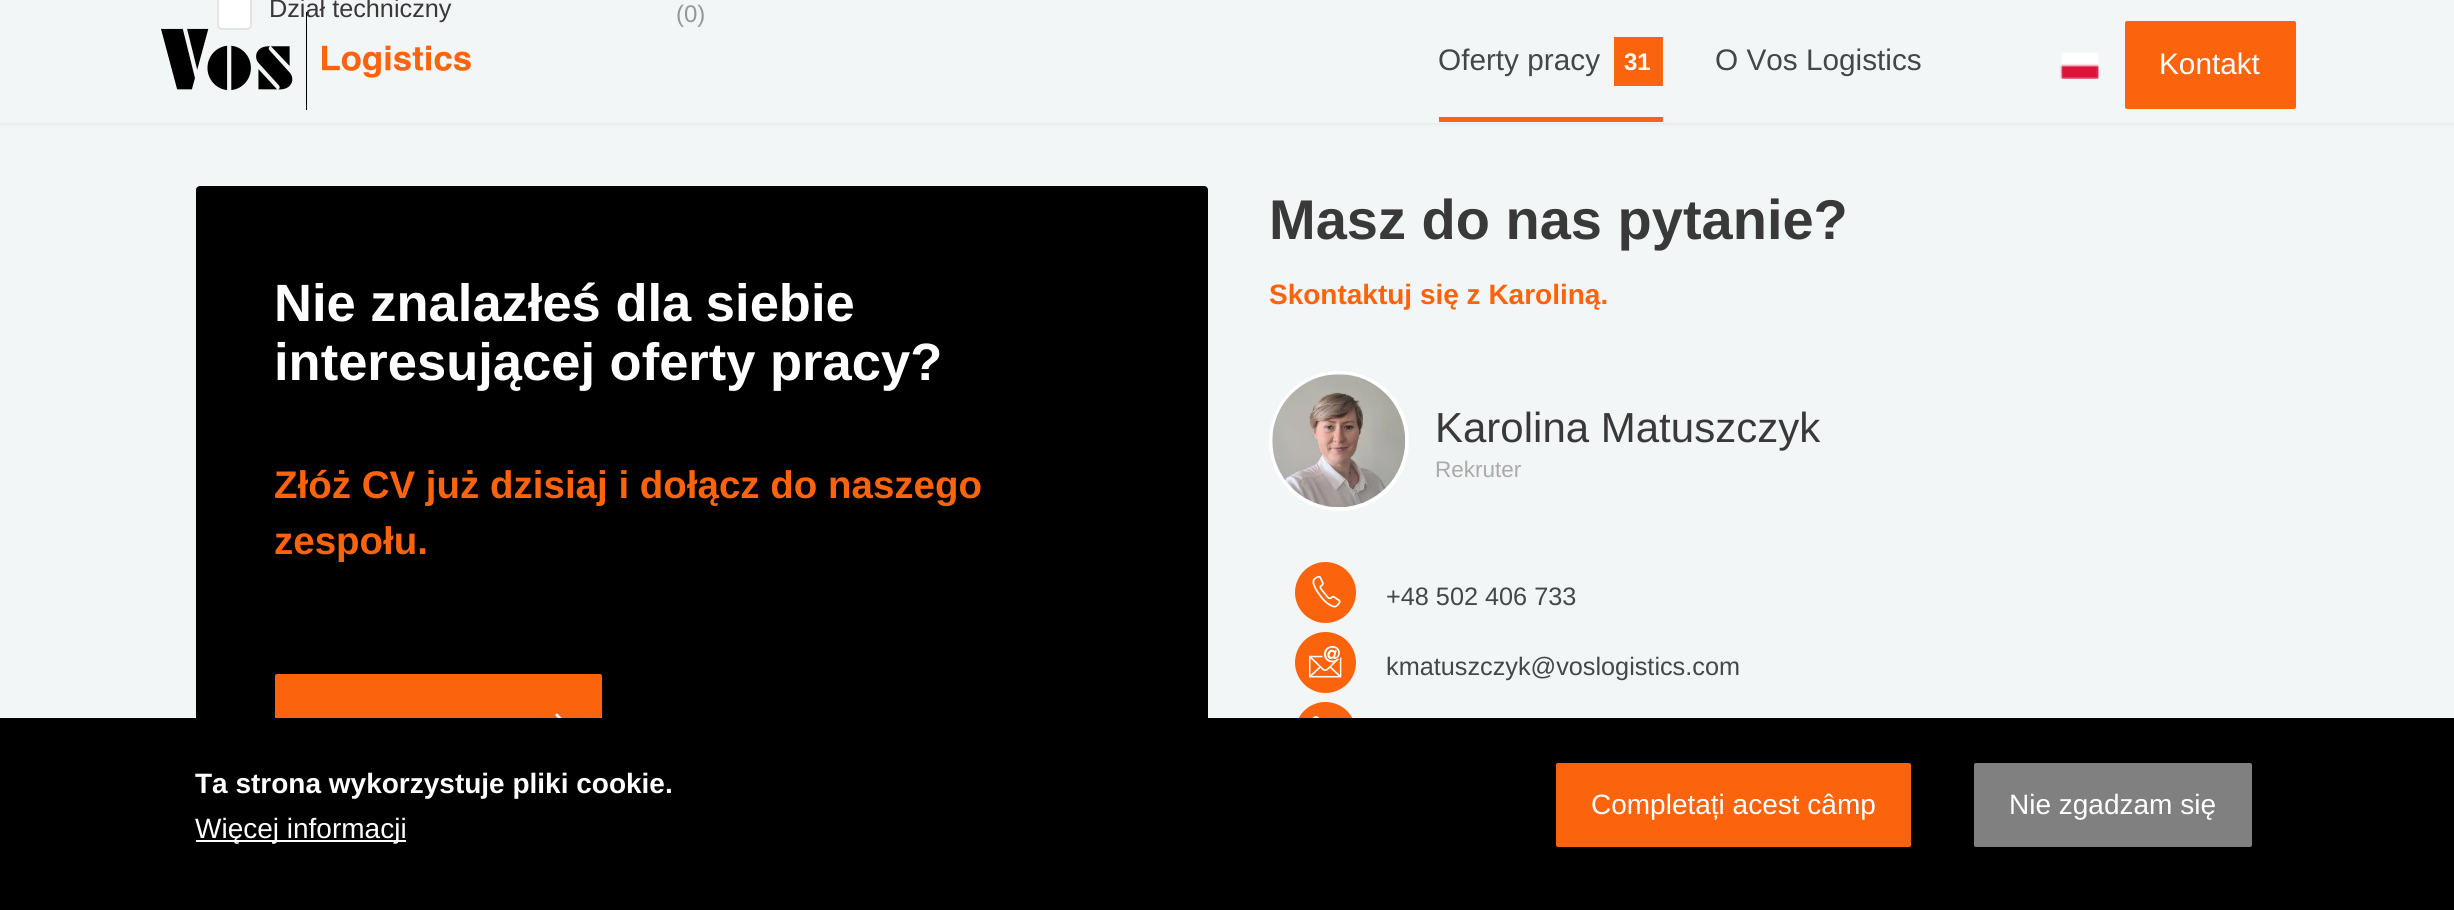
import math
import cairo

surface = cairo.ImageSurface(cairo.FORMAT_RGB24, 2454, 910)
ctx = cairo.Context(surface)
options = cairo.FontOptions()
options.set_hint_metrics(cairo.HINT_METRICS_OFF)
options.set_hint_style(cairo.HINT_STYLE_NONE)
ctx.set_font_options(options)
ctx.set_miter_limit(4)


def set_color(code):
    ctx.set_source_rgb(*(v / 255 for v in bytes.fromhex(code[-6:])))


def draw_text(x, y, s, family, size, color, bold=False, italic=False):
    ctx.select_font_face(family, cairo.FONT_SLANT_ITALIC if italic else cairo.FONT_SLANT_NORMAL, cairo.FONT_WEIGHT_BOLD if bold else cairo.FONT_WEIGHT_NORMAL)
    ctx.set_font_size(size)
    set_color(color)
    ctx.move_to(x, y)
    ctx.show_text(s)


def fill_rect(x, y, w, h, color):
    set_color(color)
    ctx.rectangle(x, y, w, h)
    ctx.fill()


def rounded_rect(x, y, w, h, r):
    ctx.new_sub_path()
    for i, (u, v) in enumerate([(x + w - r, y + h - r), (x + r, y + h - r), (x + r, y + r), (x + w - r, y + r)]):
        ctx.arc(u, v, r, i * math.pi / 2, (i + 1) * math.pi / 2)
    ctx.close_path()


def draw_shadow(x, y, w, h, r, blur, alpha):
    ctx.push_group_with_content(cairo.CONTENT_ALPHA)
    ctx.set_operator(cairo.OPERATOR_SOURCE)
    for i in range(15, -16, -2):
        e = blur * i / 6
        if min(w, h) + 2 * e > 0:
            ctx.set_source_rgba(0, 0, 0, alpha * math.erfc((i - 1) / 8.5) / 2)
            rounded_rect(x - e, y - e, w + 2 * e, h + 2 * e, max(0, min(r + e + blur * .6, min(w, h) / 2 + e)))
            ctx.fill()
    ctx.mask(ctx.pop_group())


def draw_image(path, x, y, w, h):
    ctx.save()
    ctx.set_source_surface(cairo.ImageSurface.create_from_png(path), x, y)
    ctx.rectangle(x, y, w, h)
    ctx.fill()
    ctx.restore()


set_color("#f3f6f6")
ctx.paint()
set_color("#ffffff")
rounded_rect(218, -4, 33, 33, 4)
ctx.fill_preserve()
set_color("#e4e4e4")
ctx.stroke()
draw_text(269, 17, "Dział techniczny", "Liberation Sans", 25.25, "#393939")
draw_text(676, 22, "(0)", "Liberation Sans", 24, "#969898")
ctx.save()
ctx.set_fill_rule(cairo.FILL_RULE_EVEN_ODD)
ctx.new_path()
ctx.move_to(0, 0)
ctx.line_to(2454, 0)
ctx.line_to(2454, 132)
ctx.line_to(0, 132)
ctx.close_path()
ctx.move_to(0, 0)
ctx.line_to(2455, 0)
ctx.line_to(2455, 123)
ctx.line_to(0, 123)
ctx.close_path()
ctx.clip()
set_color("#000000")
draw_shadow(0, 0, 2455, 123, 0, 2.5, 0.1)
ctx.restore()
draw_image("assets/img1.png", 161, 12, 310, 98)
fill_rect(1439, 117, 224, 5, "#fb630d")
draw_text(1438, 70, "Oferty pracy", "Liberation Sans", 29.75, "#434748")
fill_rect(1614, 37, 49, 49, "#fb630d")
draw_text(1624, 70, "31", "Liberation Sans", 24, "#ffffff", bold=True)
draw_text(1715, 70, "O Vos Logistics", "Liberation Sans", 29.75, "#434748")
draw_image("assets/img2.png", 2059, 52, 40, 27)
set_color("#fb630d")
rounded_rect(2125, 21, 171, 88, 2)
ctx.fill()
draw_text(2159, 74, "Kontakt", "Liberation Sans", 29.75, "#ffffff")
set_color("#000000")
rounded_rect(196, 186, 1012, 675, 4)
ctx.fill()
draw_text(274, 321, "Nie znalazłeś dla siebie", "Liberation Sans", 52.5, "#ffffff", bold=True)
draw_text(274, 380, "interesującej oferty pracy?", "Liberation Sans", 52.5, "#ffffff", bold=True)
draw_text(274, 498, "Złóż CV już dzisiaj i dołącz do naszego", "Liberation Sans", 38.5, "#fb630d", bold=True)
draw_text(274, 554, "zespołu.", "Liberation Sans", 38.5, "#fb630d", bold=True)
rounded_rect(275, 674, 327, 100, 2)
ctx.fill()
draw_image("assets/img3.png", 555, 713, 7, 5)
draw_text(1269, 239, "Masz do nas pytanie?", "Liberation Sans", 56, "#393939", bold=True)
draw_text(1269, 304, "Skontaktuj się z Karoliną.", "Liberation Sans", 28, "#fb630d", bold=True)
ctx.new_path()
ctx.arc(1339, 441, 68, 0, 2 * math.pi)
set_color("#ffffff")
ctx.set_line_width(4)
ctx.stroke()
draw_image("assets/img4.png", 1272, 374, 134, 134)
draw_text(1435, 442, "Karolina Matuszczyk", "Liberation Sans", 42, "#393939")
draw_text(1435, 477, "Rekruter", "Liberation Sans", 22.5, "#aaaaaa")
set_color("#fb630d")
ctx.new_path()
ctx.arc(1325.5, 592.5, 30.5, 0, 2 * math.pi)
ctx.fill()
draw_image("assets/img5.png", 1312, 576, 29, 32)
draw_text(1386, 605, "+48 502 406 733", "Liberation Sans", 25.25, "#434748")
set_color("#fb630d")
ctx.new_path()
ctx.arc(1325.5, 662.5, 30.5, 0, 2 * math.pi)
ctx.fill()
draw_image("assets/img6.png", 1309, 646, 33, 32)
draw_text(1386, 675, "kmatuszczyk@voslogistics.com", "Liberation Sans", 25.25, "#434748")
set_color("#fb630d")
ctx.new_path()
ctx.arc(1325.5, 732.5, 30.5, 0, 2 * math.pi)
ctx.fill()
draw_image("assets/img7.png", 1312, 716, 7, 2)
fill_rect(0, 718, 2454, 192, "#000000")
draw_text(195, 793, "Ta strona wykorzystuje pliki cookie.", "Liberation Sans", 28, "#ffffff", bold=True)
fill_rect(196, 840, 210, 2, "#ffffff")
draw_text(195, 838, "Więcej informacji", "Liberation Sans", 28, "#ffffff")
set_color("#fb630d")
rounded_rect(1556, 763, 355, 84, 2)
ctx.fill()
draw_text(1591, 814, "Completați acest câmp", "Liberation Sans", 28, "#ffffff")
set_color("#808080")
rounded_rect(1974, 763, 278, 84, 2)
ctx.fill()
draw_text(2009, 814, "Nie zgadzam się", "Liberation Sans", 28, "#ffffff")
surface.write_to_png("output.png")
